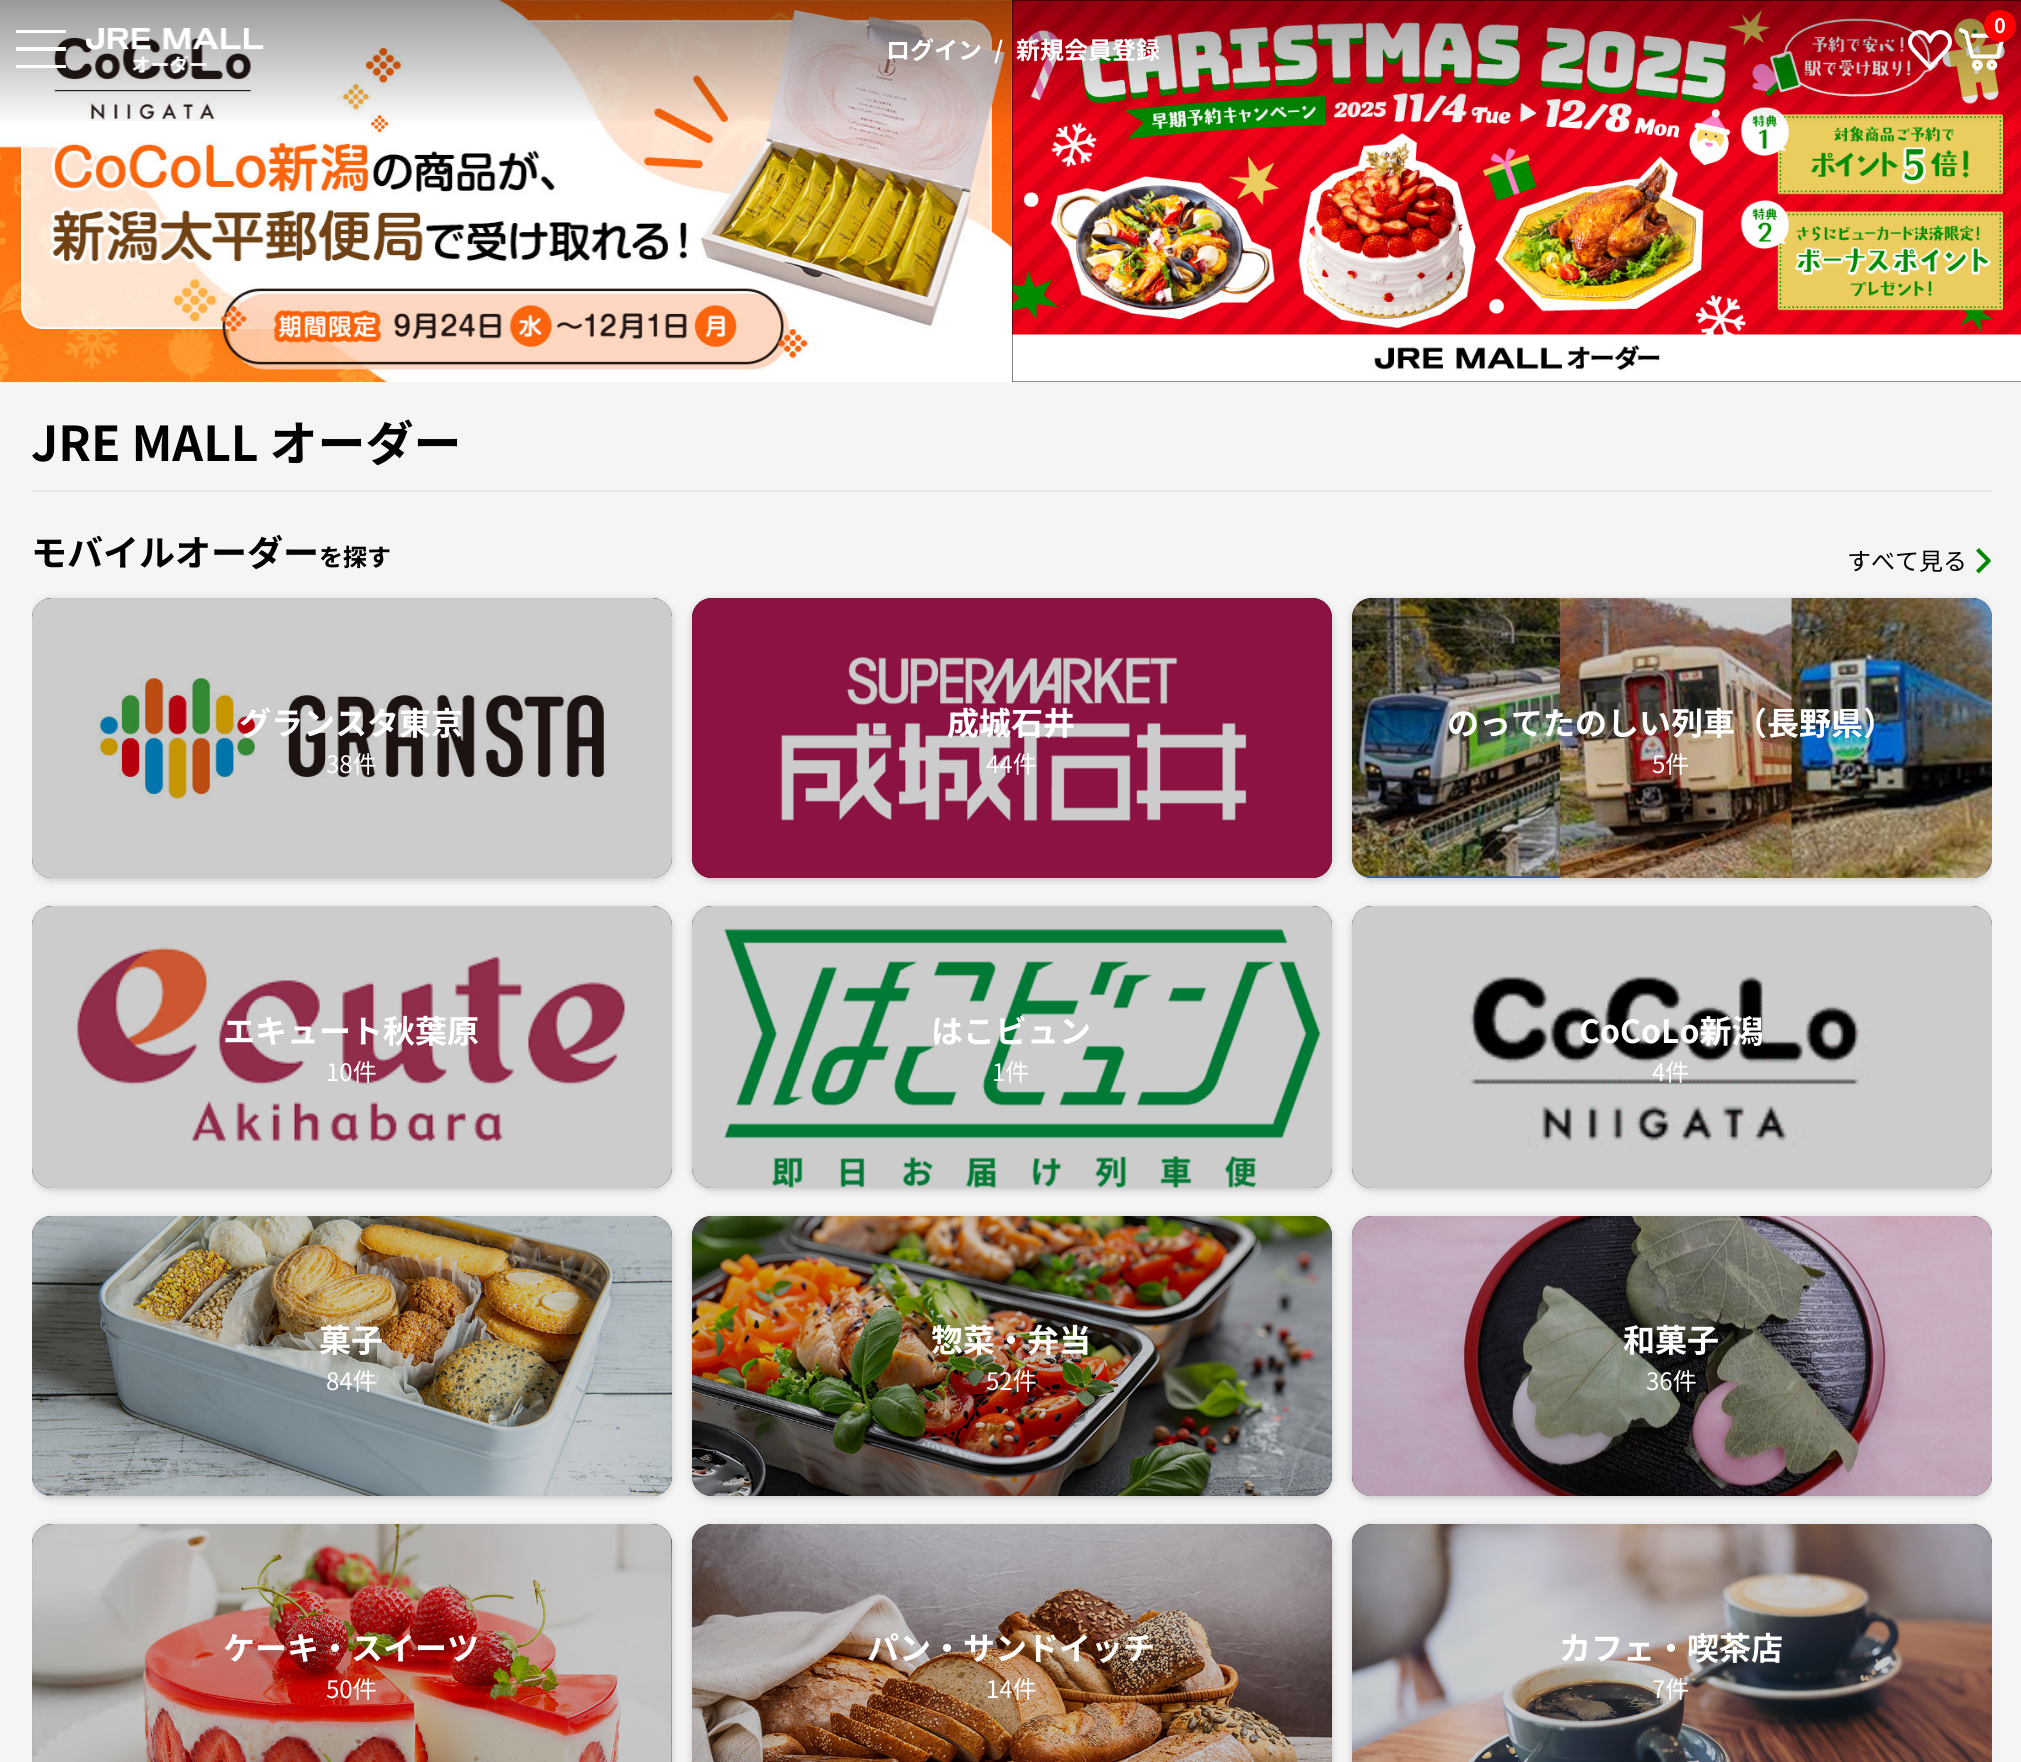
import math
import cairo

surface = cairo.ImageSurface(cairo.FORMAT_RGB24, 2021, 1762)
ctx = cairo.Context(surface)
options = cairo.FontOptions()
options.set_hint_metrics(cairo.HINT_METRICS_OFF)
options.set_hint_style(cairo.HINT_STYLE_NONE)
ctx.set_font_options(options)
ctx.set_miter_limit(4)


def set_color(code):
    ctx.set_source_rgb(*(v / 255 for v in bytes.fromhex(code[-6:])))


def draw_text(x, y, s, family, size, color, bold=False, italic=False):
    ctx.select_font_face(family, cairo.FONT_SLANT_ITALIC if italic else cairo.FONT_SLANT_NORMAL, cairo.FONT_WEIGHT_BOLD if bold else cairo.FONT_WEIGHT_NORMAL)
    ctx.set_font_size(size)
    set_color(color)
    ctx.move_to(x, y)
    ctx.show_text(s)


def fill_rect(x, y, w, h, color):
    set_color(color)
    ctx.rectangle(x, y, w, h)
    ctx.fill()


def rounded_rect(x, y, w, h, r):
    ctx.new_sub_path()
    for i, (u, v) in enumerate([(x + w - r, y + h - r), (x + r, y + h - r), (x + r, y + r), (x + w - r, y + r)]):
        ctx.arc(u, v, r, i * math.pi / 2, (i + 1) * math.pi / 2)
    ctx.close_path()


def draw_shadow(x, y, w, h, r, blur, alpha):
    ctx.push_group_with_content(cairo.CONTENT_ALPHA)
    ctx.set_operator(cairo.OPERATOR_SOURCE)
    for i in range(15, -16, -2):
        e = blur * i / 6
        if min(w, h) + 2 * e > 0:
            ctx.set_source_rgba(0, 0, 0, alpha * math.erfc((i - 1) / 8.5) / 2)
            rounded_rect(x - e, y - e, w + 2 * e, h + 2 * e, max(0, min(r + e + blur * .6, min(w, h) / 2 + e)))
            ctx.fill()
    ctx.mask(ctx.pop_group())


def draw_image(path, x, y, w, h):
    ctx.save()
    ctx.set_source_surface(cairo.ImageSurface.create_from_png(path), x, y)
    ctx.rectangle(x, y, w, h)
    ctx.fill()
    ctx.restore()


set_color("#f5f5f5")
ctx.paint()
draw_image("assets/img4.png", 0, 0, 1012, 382)
draw_image("assets/img5.png", 1012, 0, 1009, 382)
gradient = cairo.LinearGradient(1011, 0, 1011, 128)
gradient.add_color_stop_rgba(0, 0, 0, 0, 0.4)
gradient.add_color_stop_rgba(1, 0, 0, 0, 0)
ctx.set_source(gradient)
ctx.rectangle(0, 0, 2021, 121)
ctx.fill()
set_color("#ffffff")
ctx.new_path()
ctx.move_to(16, 33)
ctx.line_to(16, 30)
ctx.line_to(66, 30)
ctx.line_to(66, 33)
ctx.close_path()
ctx.move_to(66, 47)
ctx.line_to(66, 51)
ctx.line_to(16, 51)
ctx.line_to(16, 47)
ctx.close_path()
ctx.move_to(16, 65)
ctx.line_to(66, 65)
ctx.line_to(66, 68)
ctx.line_to(16, 68)
ctx.close_path()
ctx.fill()
draw_image("assets/img1.png", 86, 28, 178, 46)
draw_image("assets/img2.png", 1958, 28, 46, 43)
set_color("#ff0000")
ctx.arc(2000, 26, 16, 0, 2 * math.pi)
ctx.fill()
draw_text(1994, 33, "0", "Noto Sans JP", 20, "#ffffff", bold=True)
draw_text(886, 59, "ログイン", "Noto Sans JP", 24, "#ffffff", bold=True)
draw_text(994, 59, "/", "Noto Sans JP", 24, "#ffffff", bold=True)
draw_text(1016, 59, "新規会員登録", "Noto Sans JP", 24, "#ffffff", bold=True)
draw_image("assets/img3.png", 1908, 30, 44, 40)
fill_rect(32, 490, 1960, 2, "#e7e7e7")
draw_text(31, 461, "JRE MALL オーダー", "Noto Sans JP", 48, "#000000", bold=True)
draw_text(31, 566, "モバイルオーダー", "Noto Sans JP", 36, "#000000", bold=True)
draw_text(319, 566, "を探す", "Noto Sans JP", 24, "#000000", bold=True)
draw_text(1847, 570, "すべて見る", "Noto Sans JP", 24, "#000000")
draw_image("assets/img6.png", 1976, 548, 15, 26)
ctx.save()
ctx.rectangle(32, 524, 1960, 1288)
ctx.clip()
set_color("#000000")
draw_shadow(32, 600, 640, 280, 20, 4, 0.2)
ctx.restore()
rounded_rect(32, 598, 640, 280, 20)
ctx.fill()
draw_image("assets/img7.png", 32, 598, 640, 280)
ctx.set_source_rgba(0, 0, 0, 0.2)
rounded_rect(32, 598, 640, 280, 20)
ctx.fill()
draw_text(239, 735, "グランスタ東京", "Noto Sans JP", 32, "#ffffff", bold=True)
draw_text(326, 773, "38件", "Noto Sans JP", 24, "#ffffff")
set_color("#000000")
draw_shadow(692, 600, 640, 280, 20, 4, 0.2)
set_color("#000000")
rounded_rect(692, 598, 640, 280, 20)
ctx.fill()
draw_image("assets/img8.png", 692, 598, 640, 280)
ctx.set_source_rgba(0, 0, 0, 0.2)
rounded_rect(692, 598, 640, 280, 20)
ctx.fill()
draw_text(947, 735, "成城石井", "Noto Sans JP", 32, "#ffffff", bold=True)
draw_text(986, 773, "44件", "Noto Sans JP", 24, "#ffffff")
ctx.save()
ctx.rectangle(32, 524, 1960, 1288)
ctx.clip()
set_color("#000000")
draw_shadow(1352, 600, 640, 280, 20, 4, 0.2)
ctx.restore()
set_color("#000000")
rounded_rect(1352, 598, 640, 280, 20)
ctx.fill()
draw_image("assets/img9.png", 1352, 598, 640, 280)
ctx.set_source_rgba(0, 0, 0, 0.2)
rounded_rect(1352, 598, 640, 280, 20)
ctx.fill()
draw_text(1447, 735, "のってたのしい列車（長野県）", "Noto Sans JP", 32, "#ffffff", bold=True)
draw_text(1652, 773, "5件", "Noto Sans JP", 24, "#ffffff")
ctx.save()
ctx.rectangle(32, 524, 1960, 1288)
ctx.clip()
set_color("#000000")
draw_shadow(32, 908, 640, 282, 20, 4, 0.2)
ctx.restore()
set_color("#000000")
rounded_rect(32, 906, 640, 282, 20)
ctx.fill()
draw_image("assets/img10.png", 32, 906, 640, 282)
ctx.set_source_rgba(0, 0, 0, 0.2)
rounded_rect(32, 906, 640, 282, 20)
ctx.fill()
draw_text(223, 1043, "エキュート秋葉原", "Noto Sans JP", 32, "#ffffff", bold=True)
draw_text(326, 1081, "10件", "Noto Sans JP", 24, "#ffffff")
set_color("#000000")
draw_shadow(692, 908, 640, 282, 20, 4, 0.2)
set_color("#000000")
rounded_rect(692, 906, 640, 282, 20)
ctx.fill()
draw_image("assets/img11.png", 692, 906, 640, 282)
ctx.set_source_rgba(0, 0, 0, 0.2)
rounded_rect(692, 906, 640, 282, 20)
ctx.fill()
draw_text(931, 1043, "はこビュン", "Noto Sans JP", 32, "#ffffff", bold=True)
draw_text(992, 1081, "1件", "Noto Sans JP", 24, "#ffffff")
ctx.save()
ctx.rectangle(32, 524, 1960, 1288)
ctx.clip()
set_color("#000000")
draw_shadow(1352, 908, 640, 282, 20, 4, 0.2)
ctx.restore()
set_color("#000000")
rounded_rect(1352, 906, 640, 282, 20)
ctx.fill()
draw_image("assets/img12.png", 1352, 906, 640, 282)
ctx.set_source_rgba(0, 0, 0, 0.2)
rounded_rect(1352, 906, 640, 282, 20)
ctx.fill()
draw_text(1579, 1043, "CoCoLo新潟", "Noto Sans JP", 32, "#ffffff", bold=True)
draw_text(1652, 1081, "4件", "Noto Sans JP", 24, "#ffffff")
ctx.save()
ctx.rectangle(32, 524, 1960, 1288)
ctx.clip()
set_color("#000000")
draw_shadow(32, 1218, 640, 280, 20, 4, 0.2)
ctx.restore()
set_color("#000000")
rounded_rect(32, 1216, 640, 280, 20)
ctx.fill()
draw_image("assets/img13.png", 32, 1216, 640, 280)
ctx.set_source_rgba(0, 0, 0, 0.2)
rounded_rect(32, 1216, 640, 280, 20)
ctx.fill()
draw_text(319, 1352, "菓子", "Noto Sans JP", 32, "#ffffff", bold=True)
draw_text(326, 1390, "84件", "Noto Sans JP", 24, "#ffffff")
set_color("#000000")
draw_shadow(692, 1218, 640, 280, 20, 4, 0.2)
set_color("#000000")
rounded_rect(692, 1216, 640, 280, 20)
ctx.fill()
draw_image("assets/img14.png", 692, 1216, 640, 280)
ctx.set_source_rgba(0, 0, 0, 0.2)
rounded_rect(692, 1216, 640, 280, 20)
ctx.fill()
draw_text(931, 1352, "惣菜・弁当", "Noto Sans JP", 32, "#ffffff", bold=True)
draw_text(986, 1390, "52件", "Noto Sans JP", 24, "#ffffff")
ctx.save()
ctx.rectangle(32, 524, 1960, 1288)
ctx.clip()
set_color("#000000")
draw_shadow(1352, 1218, 640, 280, 20, 4, 0.2)
ctx.restore()
set_color("#000000")
rounded_rect(1352, 1216, 640, 280, 20)
ctx.fill()
draw_image("assets/img15.png", 1352, 1216, 640, 280)
ctx.set_source_rgba(0, 0, 0, 0.2)
rounded_rect(1352, 1216, 640, 280, 20)
ctx.fill()
draw_text(1623, 1352, "和菓子", "Noto Sans JP", 32, "#ffffff", bold=True)
draw_text(1646, 1390, "36件", "Noto Sans JP", 24, "#ffffff")
ctx.save()
ctx.rectangle(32, 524, 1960, 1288)
ctx.clip()
set_color("#000000")
draw_shadow(32, 1526, 640, 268, 20, 4, 0.2)
ctx.restore()
set_color("#000000")
rounded_rect(32, 1524, 640, 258, 20)
ctx.fill()
draw_image("assets/img16.png", 32, 1524, 640, 238)
ctx.set_source_rgba(0, 0, 0, 0.2)
rounded_rect(32, 1524, 640, 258, 20)
ctx.fill()
draw_text(223, 1660, "ケーキ・スイーツ", "Noto Sans JP", 32, "#ffffff", bold=True)
draw_text(326, 1698, "50件", "Noto Sans JP", 24, "#ffffff")
set_color("#000000")
draw_shadow(692, 1526, 640, 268, 20, 4, 0.2)
set_color("#000000")
rounded_rect(692, 1524, 640, 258, 20)
ctx.fill()
draw_image("assets/img17.png", 692, 1524, 640, 238)
ctx.set_source_rgba(0, 0, 0, 0.2)
rounded_rect(692, 1524, 640, 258, 20)
ctx.fill()
draw_text(867, 1660, "パン・サンドイッチ", "Noto Sans JP", 32, "#ffffff", bold=True)
draw_text(986, 1698, "14件", "Noto Sans JP", 24, "#ffffff")
ctx.save()
ctx.rectangle(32, 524, 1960, 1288)
ctx.clip()
set_color("#000000")
draw_shadow(1352, 1526, 640, 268, 20, 4, 0.2)
ctx.restore()
set_color("#000000")
rounded_rect(1352, 1524, 640, 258, 20)
ctx.fill()
draw_image("assets/img18.png", 1352, 1524, 640, 238)
ctx.set_source_rgba(0, 0, 0, 0.2)
rounded_rect(1352, 1524, 640, 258, 20)
ctx.fill()
draw_text(1559, 1660, "カフェ・喫茶店", "Noto Sans JP", 32, "#ffffff", bold=True)
draw_text(1652, 1698, "7件", "Noto Sans JP", 24, "#ffffff")
surface.write_to_png("output.png")
